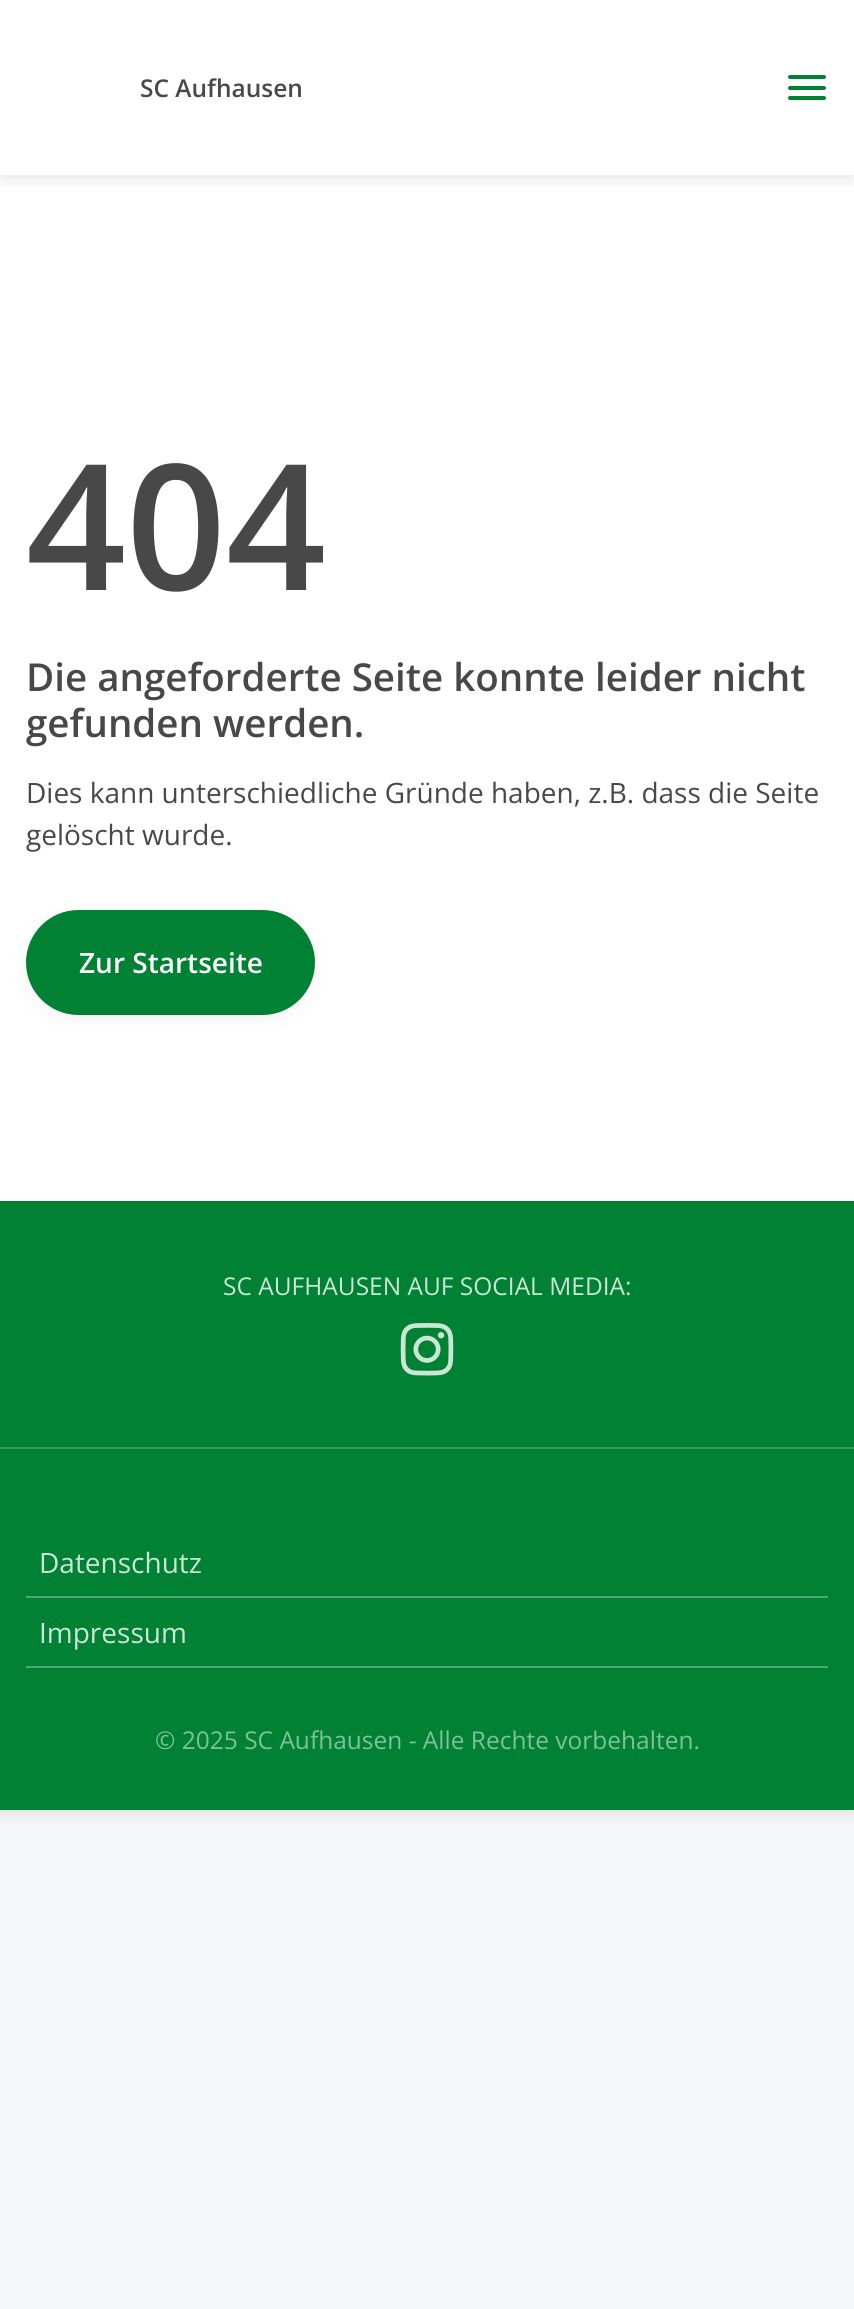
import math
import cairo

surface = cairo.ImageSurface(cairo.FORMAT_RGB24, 854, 2309)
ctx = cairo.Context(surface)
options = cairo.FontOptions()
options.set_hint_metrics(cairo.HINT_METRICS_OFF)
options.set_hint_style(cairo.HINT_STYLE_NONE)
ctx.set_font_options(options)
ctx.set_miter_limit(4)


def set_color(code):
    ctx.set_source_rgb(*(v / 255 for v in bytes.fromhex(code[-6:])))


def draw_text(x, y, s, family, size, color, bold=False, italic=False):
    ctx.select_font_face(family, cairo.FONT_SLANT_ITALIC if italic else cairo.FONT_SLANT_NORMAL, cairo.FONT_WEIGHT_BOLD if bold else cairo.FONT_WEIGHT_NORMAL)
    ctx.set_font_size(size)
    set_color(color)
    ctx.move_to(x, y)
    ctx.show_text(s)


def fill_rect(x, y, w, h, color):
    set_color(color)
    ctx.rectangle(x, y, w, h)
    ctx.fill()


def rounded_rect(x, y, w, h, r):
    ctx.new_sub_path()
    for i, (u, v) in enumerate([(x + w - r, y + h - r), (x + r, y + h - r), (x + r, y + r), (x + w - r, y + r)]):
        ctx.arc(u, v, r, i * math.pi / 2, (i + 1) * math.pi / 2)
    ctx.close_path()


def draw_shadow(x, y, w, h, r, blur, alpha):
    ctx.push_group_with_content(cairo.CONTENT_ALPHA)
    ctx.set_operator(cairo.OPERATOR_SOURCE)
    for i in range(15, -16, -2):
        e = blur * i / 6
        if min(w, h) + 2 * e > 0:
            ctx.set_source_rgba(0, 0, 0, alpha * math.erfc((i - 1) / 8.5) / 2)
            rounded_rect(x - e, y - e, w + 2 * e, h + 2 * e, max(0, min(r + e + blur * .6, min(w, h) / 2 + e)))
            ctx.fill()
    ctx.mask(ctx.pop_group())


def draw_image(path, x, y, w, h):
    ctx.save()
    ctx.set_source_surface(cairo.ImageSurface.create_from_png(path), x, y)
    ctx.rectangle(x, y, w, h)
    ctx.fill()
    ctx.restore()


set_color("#f5f7f9")
ctx.paint()
set_color("#000000")
draw_shadow(0, 4, 854, 1809, 0, 9, 0.1)
fill_rect(0, 0, 854, 1201, "#ffffff")
ctx.save()
ctx.rectangle(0, 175, 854, 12)
ctx.clip()
set_color("#000000")
draw_shadow(0, 4, 854, 175, 0, 9, 0.1)
ctx.restore()
draw_text(140, 97, "SC Aufhausen", "Open Sans SemiBold", 24.5, "#484848")
set_color("#008134")
rounded_rect(788, 75, 38, 4, 2)
ctx.fill()
rounded_rect(788, 86, 38, 4, 2)
ctx.fill()
rounded_rect(788, 96, 38, 4, 2)
ctx.fill()
draw_text(26, 590, "404", "Open Sans SemiBold", 175, "#484848")
draw_text(26, 691, "Die angeforderte Seite konnte leider nicht", "Open Sans SemiBold", 38.5, "#484848")
draw_text(26, 737, "gefunden werden.", "Open Sans SemiBold", 38.5, "#484848")
draw_text(26, 803, "Dies kann unterschiedliche Gründe haben, z.B. dass die Seite", "Open Sans", 28, "#484848")
draw_text(26, 845, "gelöscht wurde.", "Open Sans", 28, "#484848")
set_color("#000000")
draw_shadow(26, 914, 289, 105, 52.5, 9, 0.05)
set_color("#008134")
rounded_rect(26, 910, 289, 105, 52.5)
ctx.fill()
draw_text(79, 973, "Zur Startseite", "Open Sans SemiBold", 28, "#ffffff")
fill_rect(0, 1201, 854, 246, "#008134")
fill_rect(0, 1447, 854, 2, "#339a5d")
draw_text(223, 1295, "SC AUFHAUSEN AUF SOCIAL MEDIA:", "Open Sans", 24.5, "#cce6d6")
draw_image("assets/img1.png", 400, 1323, 54, 53)
fill_rect(0, 1449, 854, 361, "#008134")
fill_rect(26, 1596, 802, 2, "#4da771")
draw_text(39, 1573, "Datenschutz", "Open Sans", 28, "#cce6d6")
fill_rect(26, 1666, 802, 2, "#4da771")
draw_text(39, 1643, "Impressum", "Open Sans", 28, "#cce6d6")
draw_text(155, 1749, "© 2025 SC Aufhausen - Alle Rechte vorbehalten.", "Open Sans", 24.5, "#80c09a")
surface.write_to_png("output.png")
